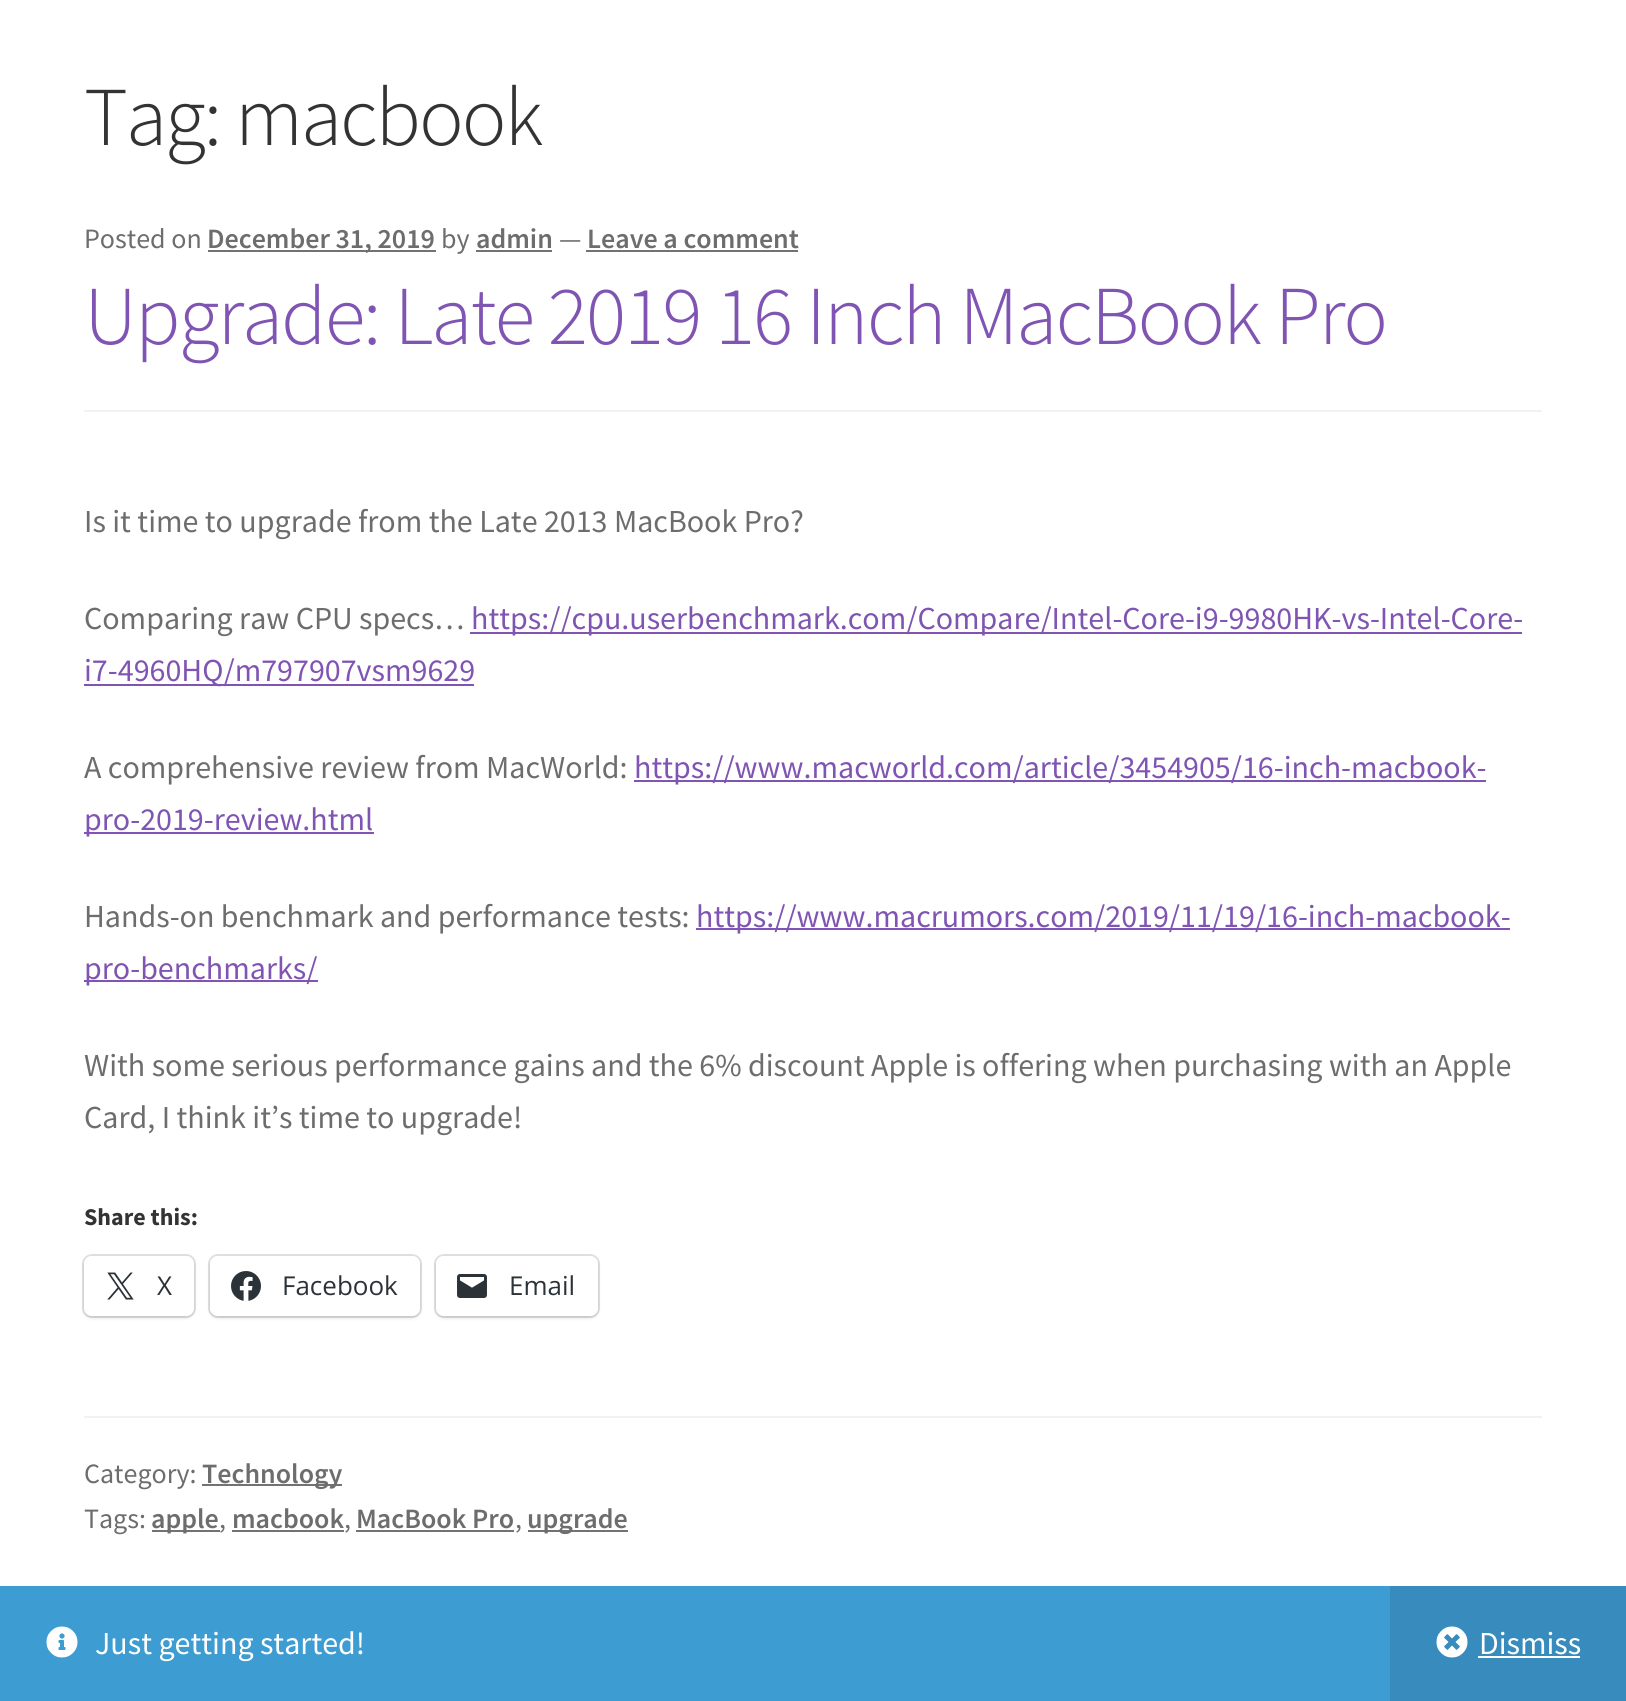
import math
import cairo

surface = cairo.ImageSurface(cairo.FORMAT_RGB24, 1626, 1701)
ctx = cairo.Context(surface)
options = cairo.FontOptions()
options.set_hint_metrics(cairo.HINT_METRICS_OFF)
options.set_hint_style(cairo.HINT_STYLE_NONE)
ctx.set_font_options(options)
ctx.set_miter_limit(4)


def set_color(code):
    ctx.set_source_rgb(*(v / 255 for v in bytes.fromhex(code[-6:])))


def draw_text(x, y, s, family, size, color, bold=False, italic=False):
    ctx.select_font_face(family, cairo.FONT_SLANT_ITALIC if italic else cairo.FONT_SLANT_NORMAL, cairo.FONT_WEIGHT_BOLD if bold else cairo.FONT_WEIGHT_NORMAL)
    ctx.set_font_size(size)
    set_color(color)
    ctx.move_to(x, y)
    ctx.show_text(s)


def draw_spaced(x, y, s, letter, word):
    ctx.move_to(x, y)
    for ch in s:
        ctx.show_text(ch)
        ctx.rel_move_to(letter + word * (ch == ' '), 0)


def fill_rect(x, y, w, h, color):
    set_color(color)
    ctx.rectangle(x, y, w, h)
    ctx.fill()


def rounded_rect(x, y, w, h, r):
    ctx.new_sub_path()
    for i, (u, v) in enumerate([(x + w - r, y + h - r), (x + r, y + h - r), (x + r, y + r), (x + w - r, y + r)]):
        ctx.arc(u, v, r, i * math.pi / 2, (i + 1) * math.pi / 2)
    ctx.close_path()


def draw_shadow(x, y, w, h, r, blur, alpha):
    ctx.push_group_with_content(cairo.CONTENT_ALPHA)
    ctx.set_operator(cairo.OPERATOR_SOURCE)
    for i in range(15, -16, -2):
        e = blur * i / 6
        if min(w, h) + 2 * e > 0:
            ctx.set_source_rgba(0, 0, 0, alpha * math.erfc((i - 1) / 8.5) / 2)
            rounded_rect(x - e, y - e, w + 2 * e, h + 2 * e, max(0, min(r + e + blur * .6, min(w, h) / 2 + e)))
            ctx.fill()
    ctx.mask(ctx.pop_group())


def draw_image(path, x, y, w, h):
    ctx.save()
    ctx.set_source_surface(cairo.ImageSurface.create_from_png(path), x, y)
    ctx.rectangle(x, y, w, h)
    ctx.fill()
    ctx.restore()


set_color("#ffffff")
ctx.paint()
ctx.select_font_face("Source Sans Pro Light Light")
ctx.set_font_size(83.75)
set_color("#333333")
draw_spaced(84, 145, "Tag: macbook", -2, 0)
fill_rect(84, 410, 1458, 2, "#f2f2f2")
draw_text(84, 248, "Posted on", "Source Sans Pro", 28, "#6d6d6d")
fill_rect(208, 250, 228, 2, "#727272")
draw_text(207, 248, "December 31, 2019", "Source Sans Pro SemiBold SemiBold", 28, "#6d6d6d")
draw_text(441, 248, "by", "Source Sans Pro", 28, "#6d6d6d")
draw_text(476, 248, "admin", "Source Sans Pro SemiBold SemiBold", 28, "#6d6d6d")
fill_rect(476, 250, 76, 2, "#727272")
draw_text(559, 248, "—", "Source Sans Pro", 28, "#6d6d6d")
draw_text(587, 248, "Leave a comment", "Source Sans Pro SemiBold SemiBold", 28, "#6d6d6d")
fill_rect(586, 250, 212, 2, "#727272")
ctx.select_font_face("Source Sans Pro Light Light")
ctx.set_font_size(83.75)
set_color("#7f54b3")
draw_spaced(84, 344, "Upgrade: Late 2019 16 Inch MacBook Pro", -2, 0)
draw_text(84, 532, "Is it time to upgrade from the Late 2013 MacBook Pro?", "Source Sans Pro", 32, "#6d6d6d")
draw_text(84, 629, "Comparing raw CPU specs…", "Source Sans Pro", 32, "#6d6d6d")
fill_rect(470, 632, 1052, 2, "#7f54b3")
draw_text(471, 629, "https://cpu.userbenchmark.com/Compare/Intel-Core-i9-9980HK-vs-Intel-Core-", "Source Sans Pro", 32, "#7f54b3")
fill_rect(84, 684, 390, 2, "#7f54b3")
draw_text(84, 681, "i7-4960HQ/m797907vsm9629", "Source Sans Pro", 32, "#7f54b3")
draw_text(84, 778, "A comprehensive review from MacWorld:", "Source Sans Pro", 32, "#6d6d6d")
fill_rect(634, 780, 852, 2, "#7f54b3")
draw_text(634, 778, "https://www.macworld.com/article/3454905/16-inch-macbook-", "Source Sans Pro", 32, "#7f54b3")
fill_rect(84, 832, 290, 2, "#7f54b3")
draw_text(84, 830, "pro-2019-review.html", "Source Sans Pro", 32, "#7f54b3")
draw_text(84, 927, "Hands-on benchmark and performance tests:", "Source Sans Pro", 32, "#6d6d6d")
fill_rect(696, 928, 814, 2, "#7f54b3")
draw_text(696, 927, "https://www.macrumors.com/2019/11/19/16-inch-macbook-", "Source Sans Pro", 32, "#7f54b3")
fill_rect(84, 980, 234, 2, "#7f54b3")
draw_text(84, 979, "pro-benchmarks/", "Source Sans Pro", 32, "#7f54b3")
draw_text(84, 1076, "With some serious performance gains and the 6% discount Apple is offering when purchasing with an Apple", "Source Sans Pro", 32, "#6d6d6d")
draw_text(84, 1128, "Card, I think it’s time to upgrade!", "Source Sans Pro", 32, "#6d6d6d")
draw_text(84, 1225, "Share this:", "Source Sans Pro", 24, "#333333", bold=True)
rounded_rect(83, 1255, 112, 62, 9)
set_color("#e0e0e0")
ctx.stroke()
set_color("#000000")
draw_shadow(84, 1258, 110, 60, 8, 2, 0.12)
set_color("#ffffff")
rounded_rect(84, 1256, 110, 60, 8)
ctx.fill()
draw_image("assets/img1.png", 107, 1272, 27, 28)
draw_text(157, 1295, "X", "Open Sans", 26, "#2c3338")
rounded_rect(209, 1255, 212, 62, 9)
set_color("#e0e0e0")
ctx.stroke()
set_color("#000000")
draw_shadow(210, 1258, 210, 60, 8, 2, 0.12)
set_color("#ffffff")
rounded_rect(210, 1256, 210, 60, 8)
ctx.fill()
draw_image("assets/img2.png", 231, 1271, 30, 30)
draw_text(282, 1295, "Facebook", "Open Sans", 26, "#2c3338")
rounded_rect(435, 1255, 164, 62, 9)
set_color("#e0e0e0")
ctx.stroke()
set_color("#000000")
draw_shadow(436, 1258, 162, 60, 8, 2, 0.12)
set_color("#ffffff")
rounded_rect(436, 1256, 162, 60, 8)
ctx.fill()
draw_image("assets/img3.png", 457, 1274, 30, 24)
draw_text(509, 1295, "Email", "Open Sans", 26, "#2c3338")
fill_rect(84, 1416, 1458, 2, "#f2f2f2")
draw_text(84, 1483, "Category:", "Source Sans Pro", 28, "#6d6d6d")
fill_rect(202, 1484, 140, 2, "#727272")
draw_text(202, 1483, "Technology", "Source Sans Pro SemiBold SemiBold", 28, "#6d6d6d")
draw_text(84, 1528, "Tags:", "Source Sans Pro", 28, "#6d6d6d")
fill_rect(152, 1530, 68, 2, "#727272")
draw_text(151, 1528, "apple", "Source Sans Pro SemiBold SemiBold", 28, "#6d6d6d")
draw_text(219, 1528, ",", "Source Sans Pro", 28, "#6d6d6d")
draw_text(232, 1528, "macbook", "Source Sans Pro SemiBold SemiBold", 28, "#6d6d6d")
fill_rect(232, 1530, 112, 2, "#727272")
draw_text(344, 1528, ",", "Source Sans Pro", 28, "#6d6d6d")
draw_text(356, 1528, "MacBook Pro", "Source Sans Pro SemiBold SemiBold", 28, "#6d6d6d")
fill_rect(356, 1530, 158, 2, "#727272")
draw_text(515, 1528, ",", "Source Sans Pro", 28, "#6d6d6d")
fill_rect(528, 1530, 100, 2, "#727272")
draw_text(527, 1528, "upgrade", "Source Sans Pro SemiBold SemiBold", 28, "#6d6d6d")
fill_rect(0, 1586, 1390, 115, "#3d9cd2")
draw_image("assets/img4.png", 46, 1626, 32, 32)
draw_text(95, 1654, "Just getting started!", "Source Sans Pro", 32, "#ffffff")
fill_rect(1390, 1586, 236, 115, "#378cbd")
draw_image("assets/img5.png", 1436, 1626, 32, 32)
draw_text(1479, 1654, "Dismiss", "Source Sans Pro", 32, "#ffffff")
fill_rect(1478, 1656, 102, 2, "#ffffff")
surface.write_to_png("output.png")
